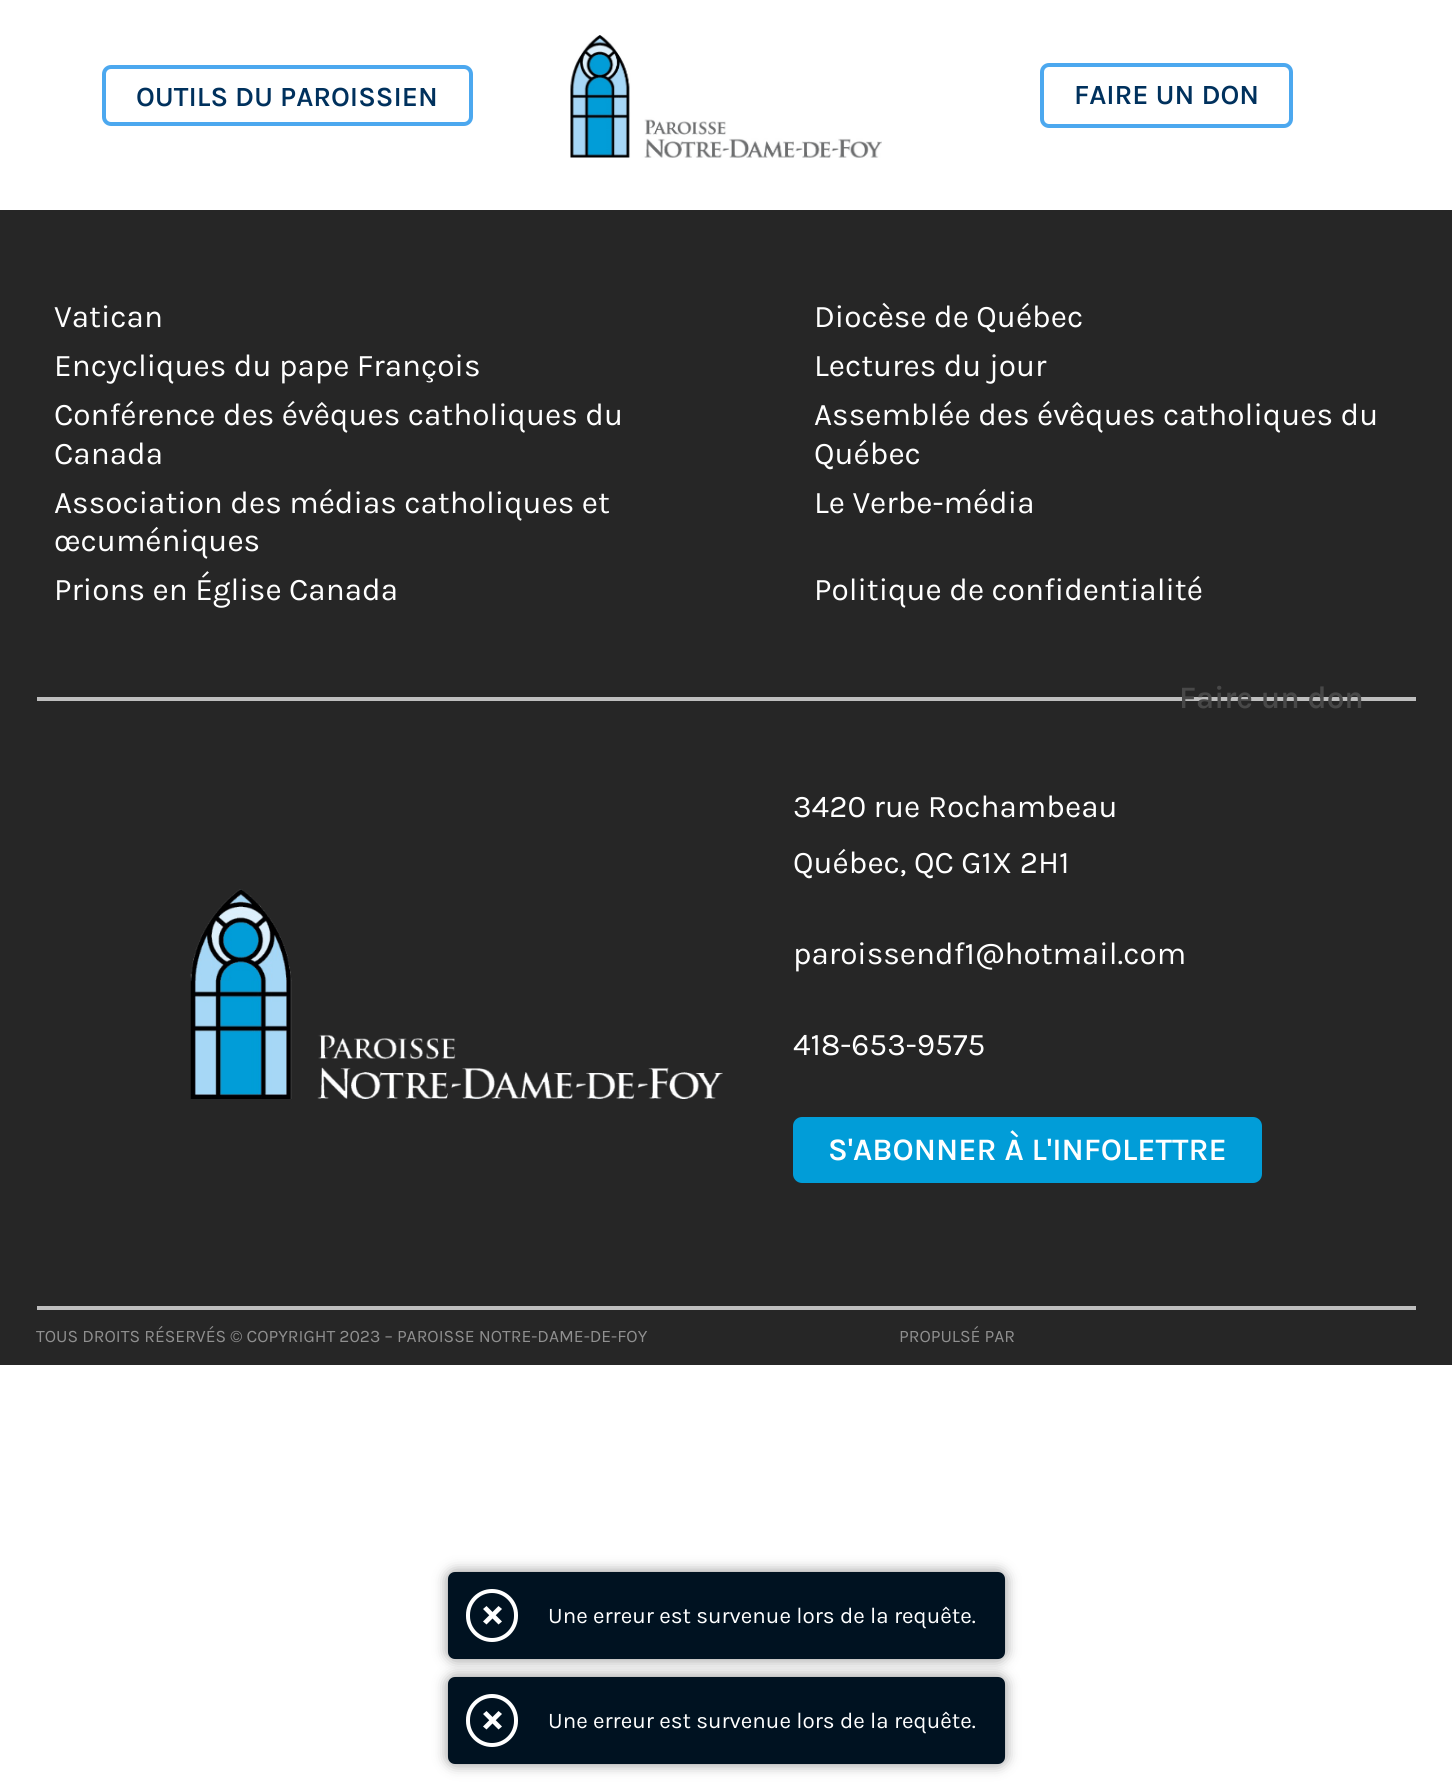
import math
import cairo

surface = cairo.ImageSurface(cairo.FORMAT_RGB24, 1452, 1789)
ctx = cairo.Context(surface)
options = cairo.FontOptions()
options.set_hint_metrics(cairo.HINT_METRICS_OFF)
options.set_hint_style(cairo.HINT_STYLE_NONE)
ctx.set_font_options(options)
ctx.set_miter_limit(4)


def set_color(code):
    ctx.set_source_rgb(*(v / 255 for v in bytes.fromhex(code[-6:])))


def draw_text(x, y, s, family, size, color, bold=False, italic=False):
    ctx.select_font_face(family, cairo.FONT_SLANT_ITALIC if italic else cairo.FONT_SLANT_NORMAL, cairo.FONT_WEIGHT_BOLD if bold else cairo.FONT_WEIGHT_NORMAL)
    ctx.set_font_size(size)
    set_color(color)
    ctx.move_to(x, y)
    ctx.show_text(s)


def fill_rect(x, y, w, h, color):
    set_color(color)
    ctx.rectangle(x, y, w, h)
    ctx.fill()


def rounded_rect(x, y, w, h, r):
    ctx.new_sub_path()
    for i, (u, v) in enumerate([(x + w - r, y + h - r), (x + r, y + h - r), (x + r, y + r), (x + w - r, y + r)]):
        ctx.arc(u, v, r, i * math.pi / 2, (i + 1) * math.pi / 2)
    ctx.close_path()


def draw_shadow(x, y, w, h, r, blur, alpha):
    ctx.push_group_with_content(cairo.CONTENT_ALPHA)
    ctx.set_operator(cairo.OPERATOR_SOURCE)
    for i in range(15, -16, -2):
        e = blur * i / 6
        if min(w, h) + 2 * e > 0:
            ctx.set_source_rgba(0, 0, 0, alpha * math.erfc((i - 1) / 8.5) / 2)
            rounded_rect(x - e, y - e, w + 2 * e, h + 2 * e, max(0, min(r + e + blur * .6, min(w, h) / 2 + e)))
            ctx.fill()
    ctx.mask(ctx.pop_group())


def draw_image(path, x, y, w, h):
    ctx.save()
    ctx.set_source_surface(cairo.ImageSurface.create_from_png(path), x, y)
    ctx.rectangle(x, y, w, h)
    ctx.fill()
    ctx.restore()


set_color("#ffffff")
ctx.paint()
rounded_rect(104, 67, 367, 57, 7)
set_color("#4ca8ef")
ctx.set_line_width(4)
ctx.stroke()
draw_text(136, 106, "OUTILS DU PAROISSIEN", "Karla SemiBold", 28, "#00315d")
draw_image("assets/img1.png", 570, 35, 312, 123)
rounded_rect(1042, 65, 249, 61, 7)
set_color("#4ca8ef")
ctx.stroke()
draw_text(1074, 104, "FAIRE UN DON", "Karla SemiBold", 28, "#00315d")
fill_rect(0, 210, 1452, 1155, "#262626")
fill_rect(37, 697, 1379, 4, "#bebebe")
draw_text(1179, 708, "Faire un don", "Karla SemiBold", 31.5, "#484848")
draw_text(54, 327, "Vatican", "Karla", 31.5, "#ffffff")
draw_text(814, 327, "Diocèse de Québec", "Karla", 31.5, "#ffffff")
draw_text(54, 376, "Encycliques du pape François", "Karla", 31.5, "#ffffff")
draw_text(814, 376, "Lectures du jour", "Karla", 31.5, "#ffffff")
draw_text(54, 425, "Conférence des évêques catholiques du", "Karla", 31.5, "#ffffff")
draw_text(54, 464, "Canada", "Karla", 31.5, "#ffffff")
draw_text(814, 425, "Assemblée des évêques catholiques du", "Karla", 31.5, "#ffffff")
draw_text(814, 464, "Québec", "Karla", 31.5, "#ffffff")
draw_text(54, 513, "Association des médias catholiques et", "Karla", 31.5, "#ffffff")
draw_text(54, 551, "œcuméniques", "Karla", 31.5, "#ffffff")
draw_text(814, 513, "Le Verbe-média", "Karla", 31.5, "#ffffff")
draw_text(54, 600, "Prions en Église Canada", "Karla", 31.5, "#ffffff")
draw_text(814, 600, "Politique de confidentialité", "Karla", 31.5, "#ffffff")
draw_image("assets/img2.png", 190, 889, 533, 210)
draw_text(793, 817, "3420 rue Rochambeau", "Karla", 31.5, "#ffffff")
draw_text(793, 873, "Québec, QC G1X 2H1", "Karla", 31.5, "#ffffff")
draw_text(793, 964, "paroissendf1@hotmail.com", "Karla", 31.5, "#ffffff")
draw_text(793, 1055, "418-653-9575", "Karla", 31.5, "#ffffff")
set_color("#019dd8")
rounded_rect(793, 1117, 469, 66, 9)
ctx.fill()
draw_text(828, 1160, "S'ABONNER À L'INFOLETTRE", "Karla SemiBold", 31.5, "#ffffff")
fill_rect(37, 1306, 1379, 4, "#bebebe")
draw_text(36, 1342, "TOUS DROITS RÉSERVÉS © COPYRIGHT 2023 – PAROISSE NOTRE-DAME-DE-FOY", "Karla", 17.5, "#909090")
draw_text(899, 1342, "PROPULSÉ PAR", "Karla", 17.5, "#909090")
set_color("#000000")
draw_shadow(448, 1572, 557, 87, 7, 7, 0.45)
set_color("#001221")
rounded_rect(448, 1572, 557, 87, 7)
ctx.fill()
rounded_rect(468, 1591, 48, 49, 24)
set_color("#ffffff")
ctx.stroke()
ctx.new_path()
ctx.move_to(498.5, 1606)
ctx.line_to(502, 1609)
ctx.line_to(486.5, 1624.5)
ctx.line_to(483, 1621.5)
ctx.close_path()
ctx.fill()
ctx.new_path()
ctx.move_to(483, 1609)
ctx.line_to(486.5, 1606)
ctx.line_to(502, 1621.5)
ctx.line_to(498.5, 1624.5)
ctx.close_path()
ctx.fill()
draw_text(548, 1623, "Une erreur est survenue lors de la requête.", "Karla", 22.4, "#ffffff")
set_color("#000000")
draw_shadow(448, 1677, 557, 87, 7, 7, 0.45)
set_color("#001221")
rounded_rect(448, 1677, 557, 87, 7)
ctx.fill()
rounded_rect(468, 1696, 48, 49, 24)
set_color("#ffffff")
ctx.stroke()
ctx.new_path()
ctx.move_to(498.5, 1711)
ctx.line_to(502, 1714)
ctx.line_to(486.5, 1729.5)
ctx.line_to(483, 1726.5)
ctx.close_path()
ctx.fill()
ctx.new_path()
ctx.move_to(483, 1714)
ctx.line_to(486.5, 1711)
ctx.line_to(502, 1726.5)
ctx.line_to(498.5, 1729.5)
ctx.close_path()
ctx.fill()
draw_text(548, 1728, "Une erreur est survenue lors de la requête.", "Karla", 22.4, "#ffffff")
surface.write_to_png("output.png")
